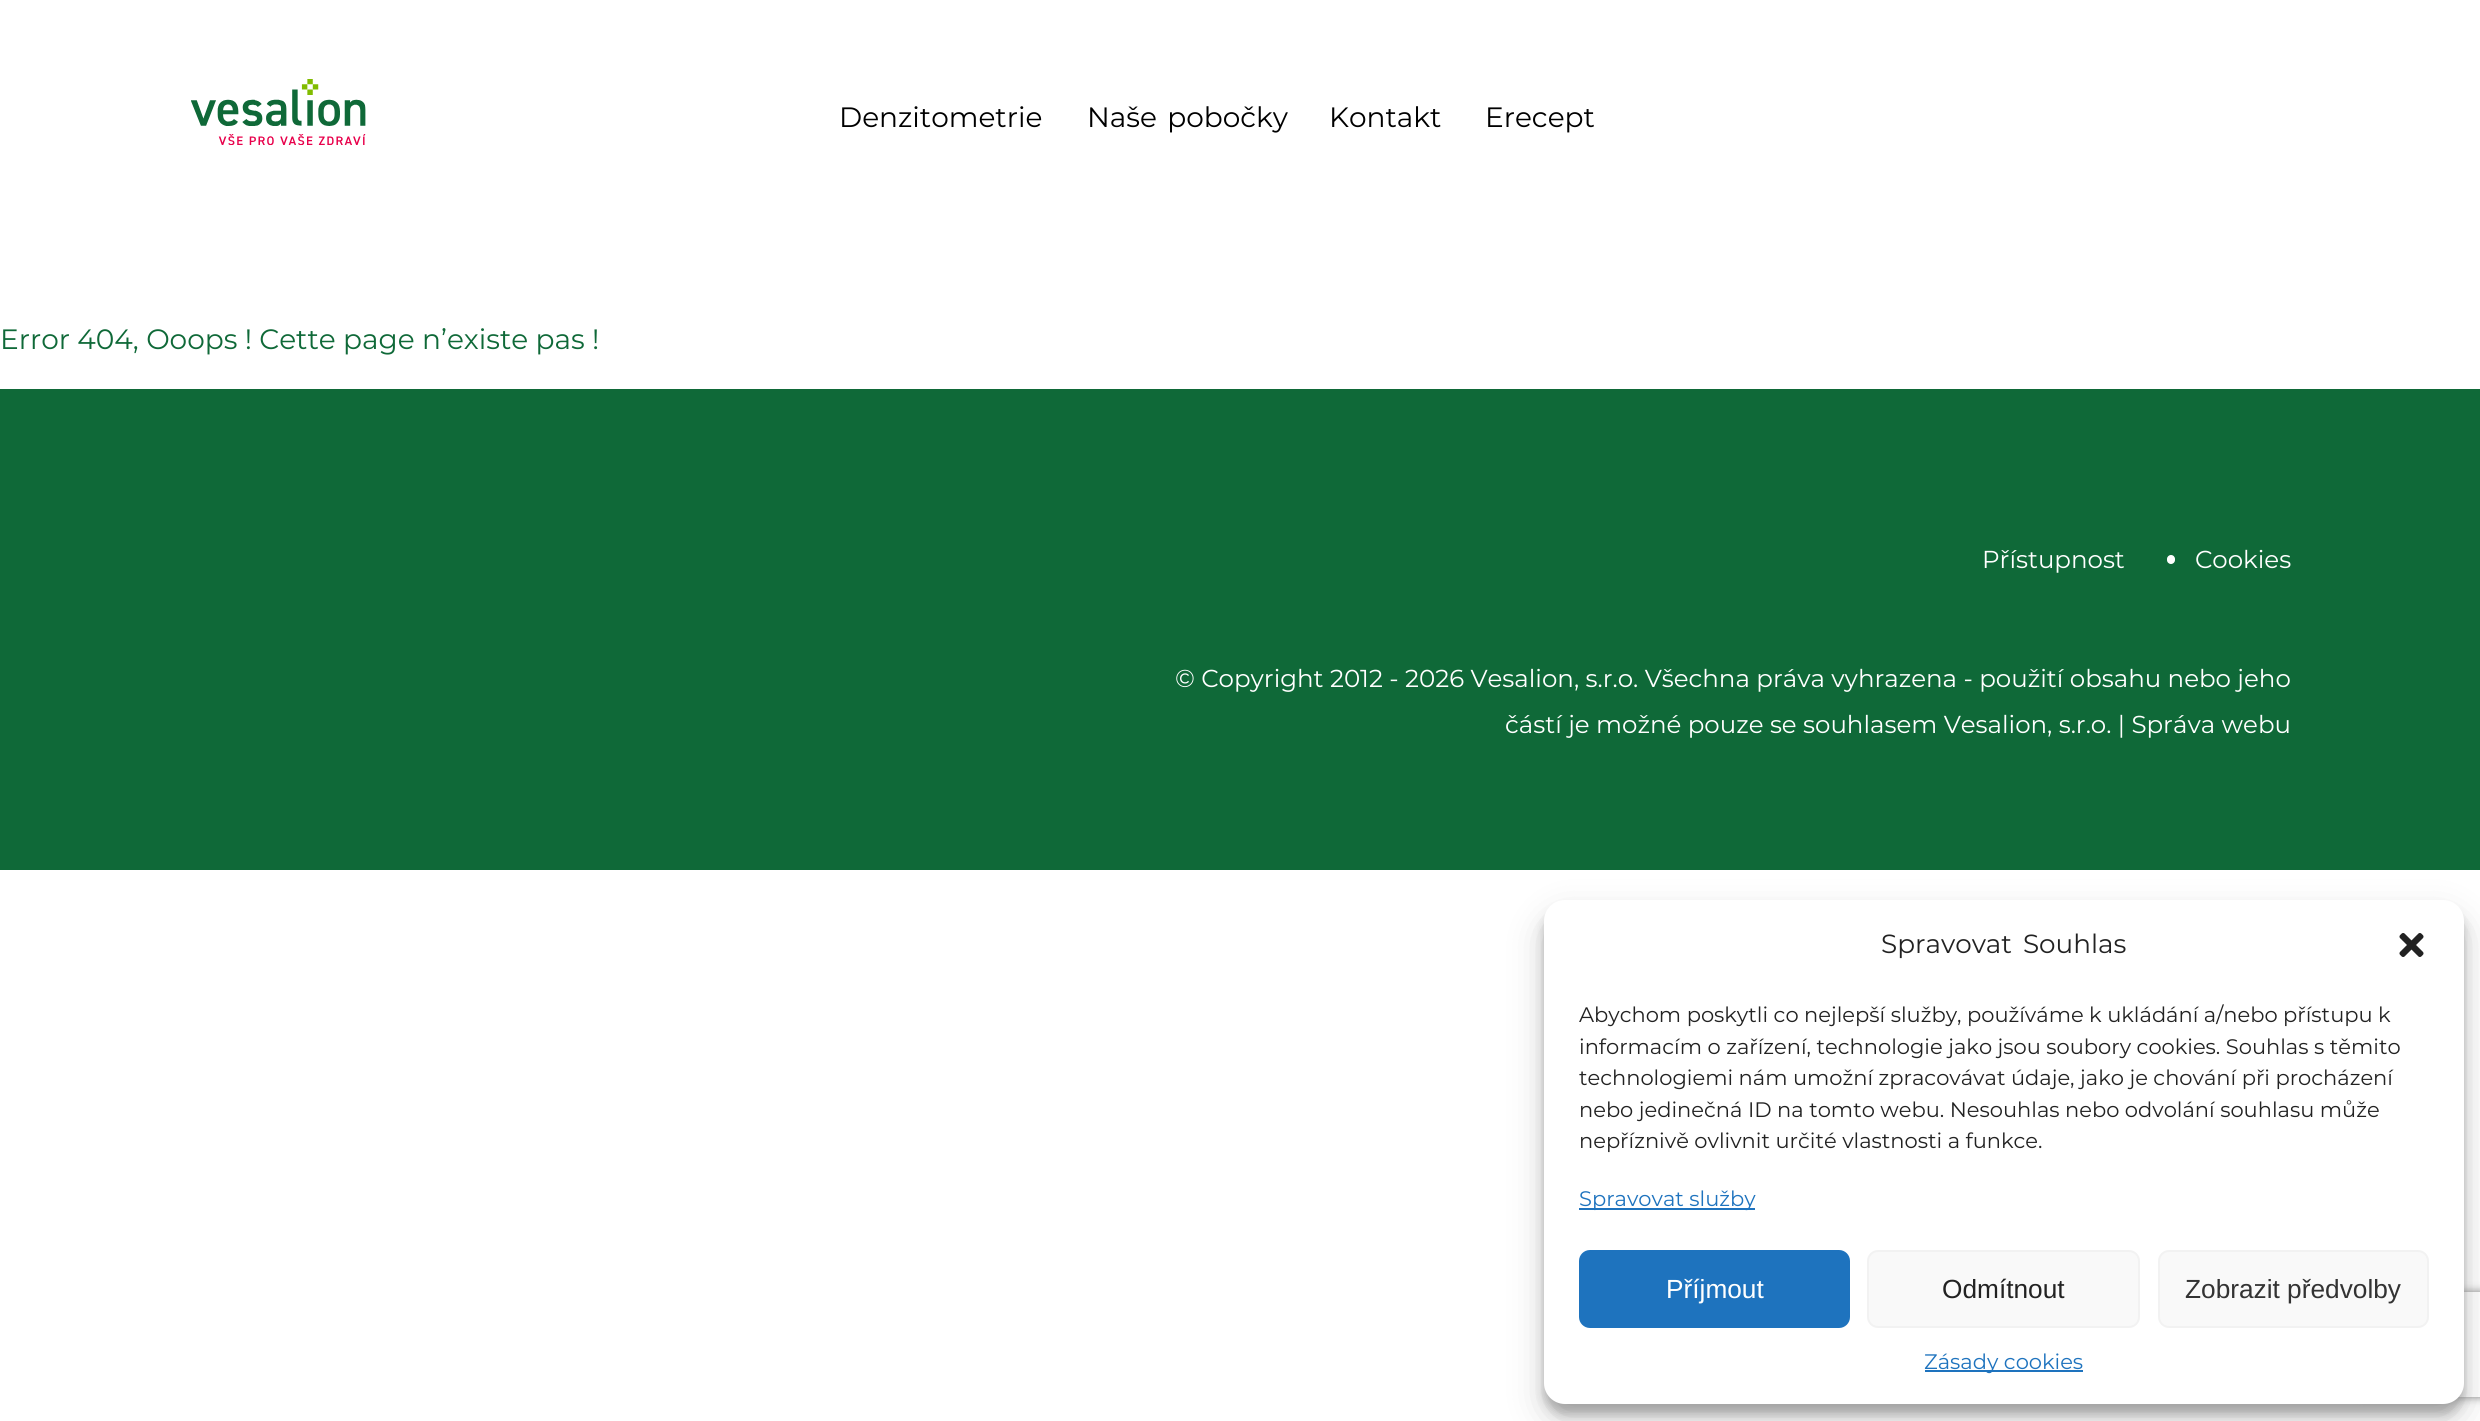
import math
import cairo

surface = cairo.ImageSurface(cairo.FORMAT_RGB24, 2480, 1421)
ctx = cairo.Context(surface)
options = cairo.FontOptions()
options.set_hint_metrics(cairo.HINT_METRICS_OFF)
options.set_hint_style(cairo.HINT_STYLE_NONE)
ctx.set_font_options(options)
ctx.set_miter_limit(4)


def set_color(code):
    ctx.set_source_rgb(*(v / 255 for v in bytes.fromhex(code[-6:])))


def draw_text(x, y, s, family, size, color, bold=False, italic=False):
    ctx.select_font_face(family, cairo.FONT_SLANT_ITALIC if italic else cairo.FONT_SLANT_NORMAL, cairo.FONT_WEIGHT_BOLD if bold else cairo.FONT_WEIGHT_NORMAL)
    ctx.set_font_size(size)
    set_color(color)
    ctx.move_to(x, y)
    ctx.show_text(s)


def draw_spaced(x, y, s, letter, word):
    ctx.move_to(x, y)
    for ch in s:
        ctx.show_text(ch)
        ctx.rel_move_to(letter + word * (ch == ' '), 0)


def fill_rect(x, y, w, h, color):
    set_color(color)
    ctx.rectangle(x, y, w, h)
    ctx.fill()


def rounded_rect(x, y, w, h, r):
    ctx.new_sub_path()
    for i, (u, v) in enumerate([(x + w - r, y + h - r), (x + r, y + h - r), (x + r, y + r), (x + w - r, y + r)]):
        ctx.arc(u, v, r, i * math.pi / 2, (i + 1) * math.pi / 2)
    ctx.close_path()


def draw_shadow(x, y, w, h, r, blur, alpha):
    ctx.push_group_with_content(cairo.CONTENT_ALPHA)
    ctx.set_operator(cairo.OPERATOR_SOURCE)
    for i in range(15, -16, -2):
        e = blur * i / 6
        if min(w, h) + 2 * e > 0:
            ctx.set_source_rgba(0, 0, 0, alpha * math.erfc((i - 1) / 8.5) / 2)
            rounded_rect(x - e, y - e, w + 2 * e, h + 2 * e, max(0, min(r + e + blur * .6, min(w, h) / 2 + e)))
            ctx.fill()
    ctx.mask(ctx.pop_group())


def draw_image(path, x, y, w, h):
    ctx.save()
    ctx.set_source_surface(cairo.ImageSurface.create_from_png(path), x, y)
    ctx.rectangle(x, y, w, h)
    ctx.fill()
    ctx.restore()


set_color("#ffffff")
ctx.paint()
draw_image("assets/img1.png", 191, 79, 175, 66)
draw_text(839, 127, "Denzitometrie", "Montserrat", 28, "#000000")
draw_spaced(1087, 127, "Naše pobočky", 0, 3)
draw_text(1329, 127, "Kontakt", "Montserrat", 28, "#000000")
draw_text(1485, 127, "Erecept", "Montserrat", 28, "#000000")
draw_text(0, 349, "Error 404, Ooops ! Cette page n’existe pas !", "Montserrat", 28, "#0f6938")
fill_rect(0, 389, 2480, 481, "#0f6938")
draw_text(1982, 568, "Přístupnost", "Montserrat", 24.5, "#ffffff")
rounded_rect(2167, 555, 8, 9, 4)
ctx.fill()
draw_text(2195, 568, "Cookies", "Montserrat", 24.5, "#ffffff")
draw_text(1175, 687, "© Copyright 2012 - 2026 Vesalion, s.r.o. Všechna práva vyhrazena - použití obsahu nebo jeho", "Montserrat", 24.5, "#ffffff")
draw_text(1505, 733, "částí je možné pouze se souhlasem Vesalion, s.r.o. | Správa webu", "Montserrat", 24.5, "#ffffff")
set_color("#000000")
draw_shadow(1544, 910, 920, 504, 21, 5, 0.23)
draw_shadow(1544, 917, 920, 504, 21, 17.5, 0.19)
ctx.save()
ctx.set_fill_rule(cairo.FILL_RULE_EVEN_ODD)
ctx.new_path()
ctx.move_to(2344, 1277)
ctx.line_to(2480, 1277)
ctx.line_to(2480, 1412)
ctx.line_to(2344, 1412)
ctx.close_path()
ctx.move_to(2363, 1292)
ctx.line_to(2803, 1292)
ctx.curve_to(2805, 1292, 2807, 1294, 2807, 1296)
ctx.line_to(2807, 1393)
ctx.curve_to(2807, 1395, 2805, 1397, 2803, 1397)
ctx.line_to(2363, 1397)
ctx.curve_to(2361, 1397, 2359, 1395, 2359, 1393)
ctx.line_to(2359, 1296)
ctx.curve_to(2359, 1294, 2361, 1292, 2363, 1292)
ctx.close_path()
ctx.clip()
set_color("#808080")
draw_shadow(2359, 1292, 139, 105, 4, 4.5, 1)
ctx.restore()
set_color("#ffffff")
rounded_rect(1544, 900, 920, 504, 21)
ctx.fill()
ctx.set_font_size(26.25)
set_color("#222222")
draw_spaced(1881, 953, "Spravovat Souhlas", 0, 4)
draw_image("assets/img2.png", 2399, 933, 25, 24)
draw_text(1579, 1022, "Abychom poskytli co nejlepší služby, používáme k ukládání a/nebo přístupu k", "Montserrat", 21, "#222222")
draw_text(1579, 1054, "informacím o zařízení, technologie jako jsou soubory cookies. Souhlas s těmito", "Montserrat", 21, "#222222")
draw_text(1579, 1085, "technologiemi nám umožní zpracovávat údaje, jako je chování při procházení", "Montserrat", 21, "#222222")
draw_text(1579, 1117, "nebo jedinečná ID na tomto webu. Nesouhlas nebo odvolání souhlasu může", "Montserrat", 21, "#222222")
draw_text(1579, 1148, "nepříznivě ovlivnit určité vlastnosti a funkce.", "Montserrat", 21, "#222222")
fill_rect(1579, 1208, 176, 2, "#1e73be")
draw_text(1579, 1206, "Spravovat služby", "Montserrat", 21, "#1e73be")
rounded_rect(1580, 1251, 269, 76, 10)
ctx.fill_preserve()
ctx.stroke()
draw_text(1666, 1298, "Příjmout", "Liberation Sans", 26.25, "#ffffff")
set_color("#f9f9f9")
rounded_rect(1868, 1251, 271, 76, 10)
ctx.fill_preserve()
set_color("#f2f2f2")
ctx.stroke()
draw_text(1942, 1298, "Odmítnout", "Liberation Sans", 26.25, "#222222")
set_color("#f9f9f9")
rounded_rect(2159, 1251, 269, 76, 10)
ctx.fill_preserve()
set_color("#f2f2f2")
ctx.stroke()
draw_text(2185, 1298, "Zobrazit předvolby", "Liberation Sans", 26.25, "#333333")
fill_rect(1925, 1370, 158, 2, "#1e73be")
draw_text(1924, 1369, "Zásady cookies", "Montserrat", 21, "#1e73be")
surface.write_to_png("output.png")
